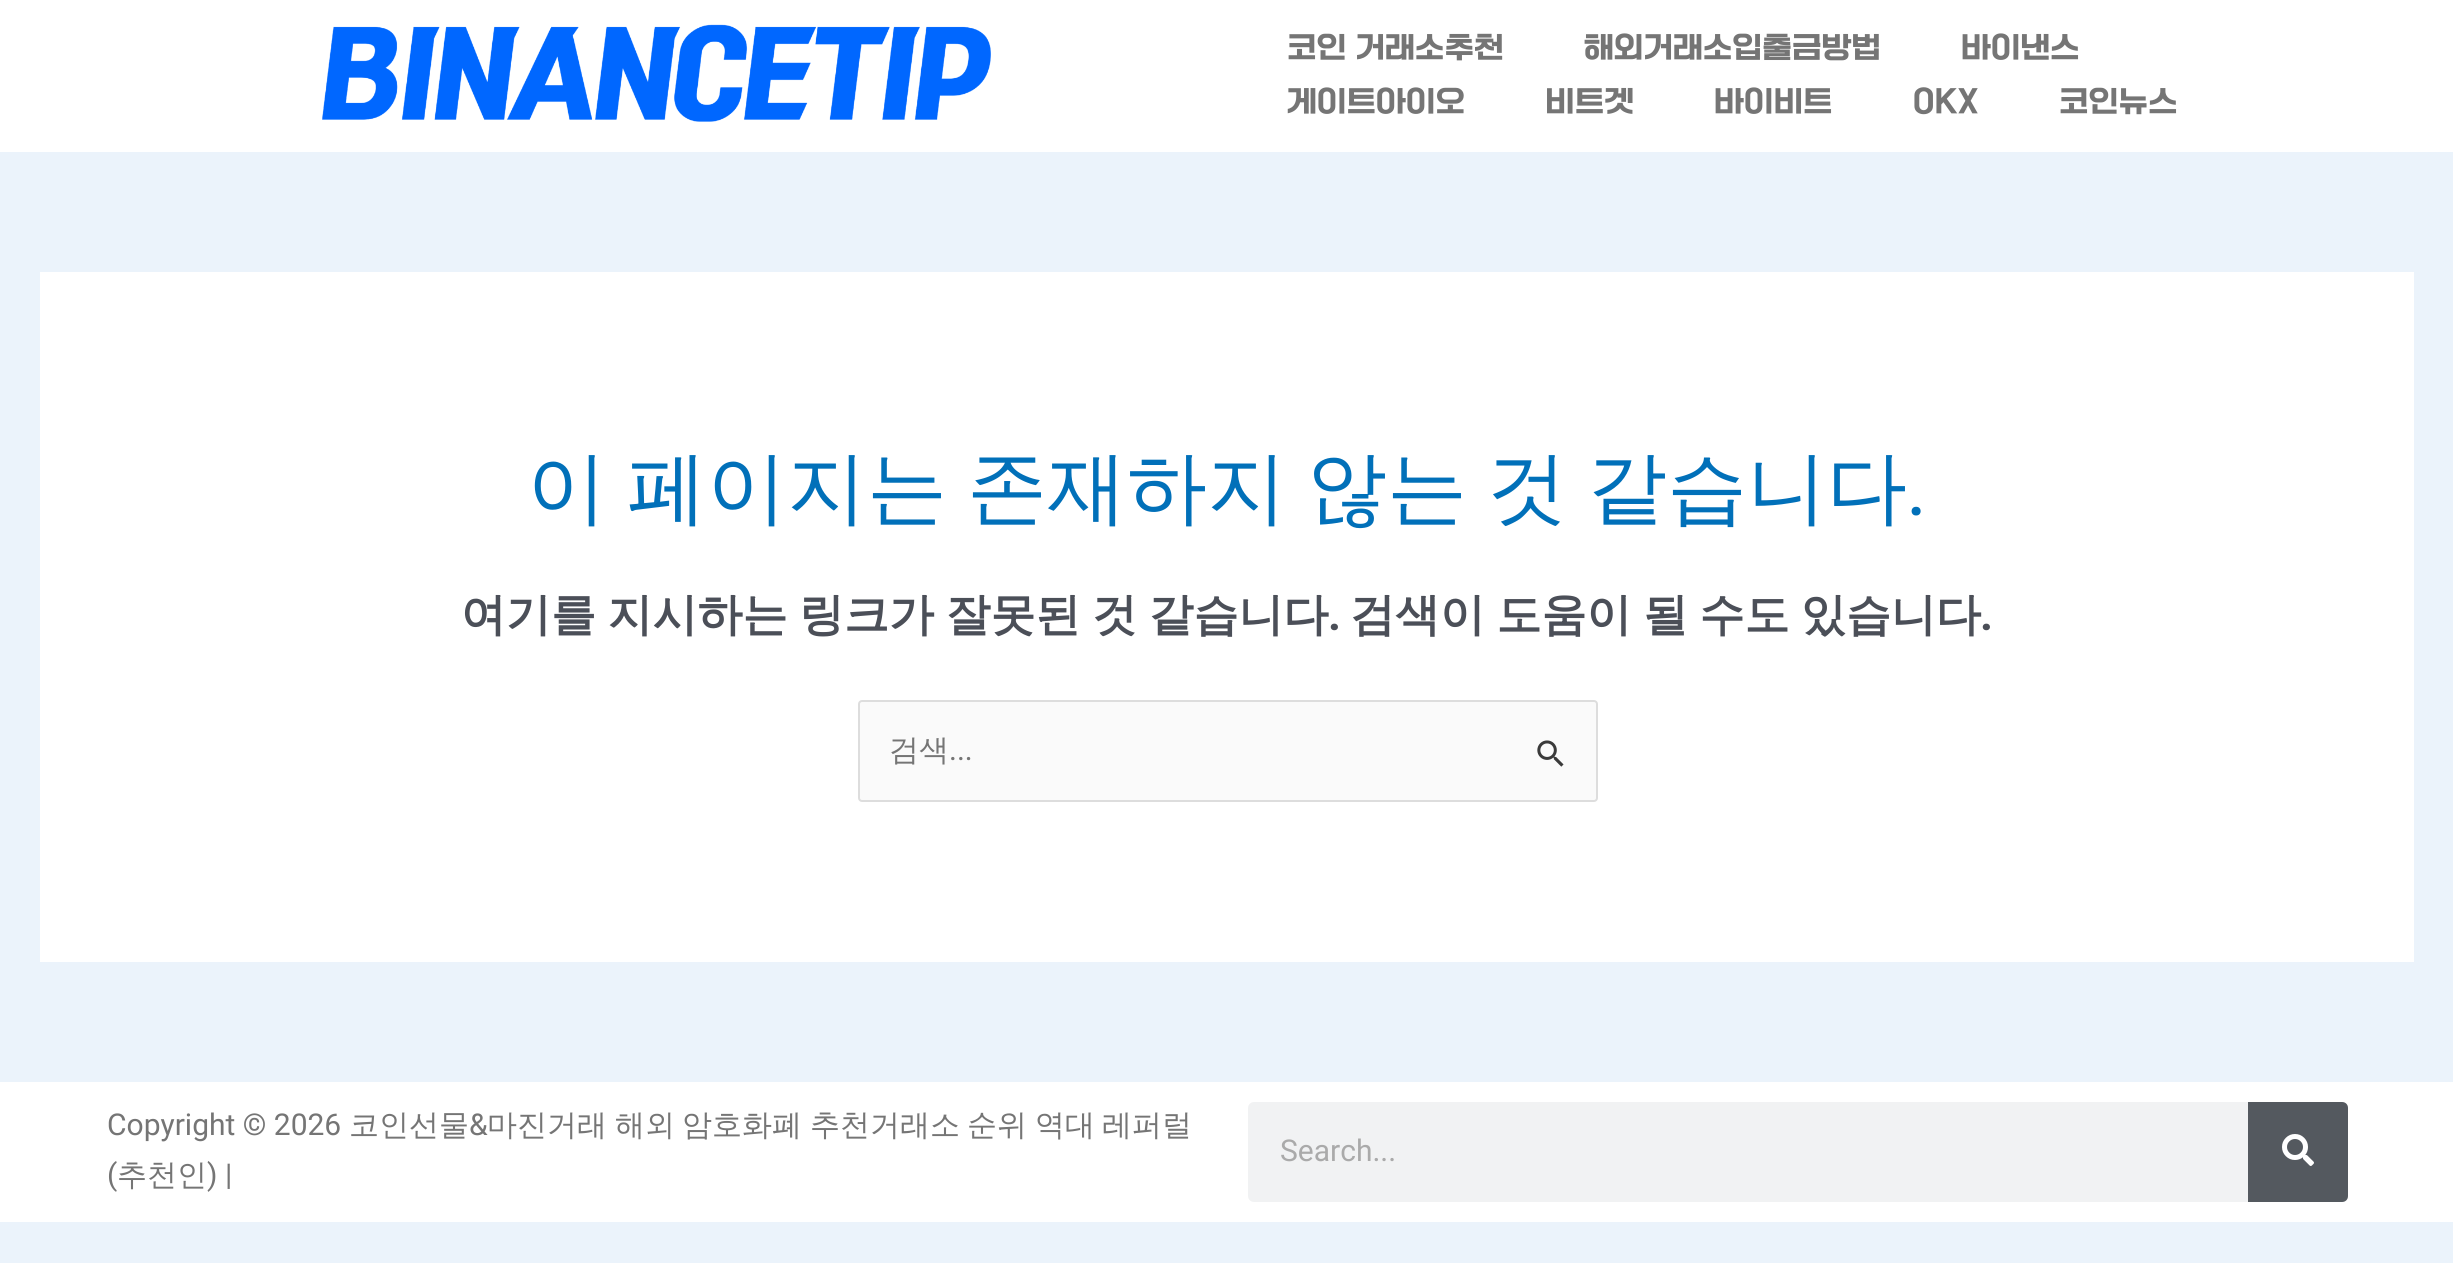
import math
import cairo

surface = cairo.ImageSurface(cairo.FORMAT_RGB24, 2453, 1263)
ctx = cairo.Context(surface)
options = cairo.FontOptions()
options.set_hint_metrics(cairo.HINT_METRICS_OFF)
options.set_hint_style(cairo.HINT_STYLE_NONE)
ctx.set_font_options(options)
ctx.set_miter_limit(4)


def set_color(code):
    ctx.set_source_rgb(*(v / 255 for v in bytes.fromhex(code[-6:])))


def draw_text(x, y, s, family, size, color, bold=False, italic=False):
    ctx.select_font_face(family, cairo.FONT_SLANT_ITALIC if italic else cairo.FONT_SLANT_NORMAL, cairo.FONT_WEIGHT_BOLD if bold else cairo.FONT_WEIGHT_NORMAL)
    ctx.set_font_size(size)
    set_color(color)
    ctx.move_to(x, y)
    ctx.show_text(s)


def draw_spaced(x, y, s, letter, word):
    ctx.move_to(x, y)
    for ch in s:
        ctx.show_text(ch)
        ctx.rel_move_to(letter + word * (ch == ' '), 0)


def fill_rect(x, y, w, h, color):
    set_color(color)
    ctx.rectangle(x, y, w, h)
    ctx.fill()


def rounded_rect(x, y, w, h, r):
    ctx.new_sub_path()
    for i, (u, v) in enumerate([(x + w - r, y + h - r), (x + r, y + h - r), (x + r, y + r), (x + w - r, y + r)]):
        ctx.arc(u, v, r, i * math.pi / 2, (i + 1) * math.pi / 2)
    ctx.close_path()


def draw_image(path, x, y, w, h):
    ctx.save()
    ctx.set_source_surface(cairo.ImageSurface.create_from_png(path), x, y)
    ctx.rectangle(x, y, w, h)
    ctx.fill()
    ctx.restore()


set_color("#ebf3fb")
ctx.paint()
fill_rect(0, 0, 2453, 152, "#ffffff")
draw_image("assets/img1.png", 322, 24, 669, 98)
draw_text(1287, 56, "코인 거래소추천", "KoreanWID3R", 30, "#757575")
draw_text(1584, 56, "해외거래소입출금방법", "KoreanWID3R", 30, "#757575")
draw_text(1961, 56, "바이낸스", "KoreanWID3R", 30, "#757575")
draw_text(1287, 110, "게이트아이오", "KoreanWID3R", 30, "#757575")
draw_text(1545, 110, "비트겟", "KoreanWID3R", 30, "#757575")
draw_text(1714, 110, "바이비트", "KoreanWID3R", 30, "#757575")
draw_text(1913, 110, "OKX", "KoreanWID3R", 30, "#757575")
draw_text(2059, 110, "코인뉴스", "KoreanWID3R", 30, "#757575")
fill_rect(40, 272, 2374, 690, "#ffffff")
ctx.select_font_face("WenQuanYi Zen Hei Medium")
ctx.set_font_size(80)
set_color("#0170b9")
draw_spaced(527, 515, "이 페이지는 존재하지 않는 것 같습니다", 0, -4)
draw_text(1906, 515, ".", "Roboto", 80, "#0170b9")
ctx.select_font_face("WenQuanYi Zen Hei", cairo.FONT_SLANT_NORMAL, cairo.FONT_WEIGHT_BOLD)
ctx.set_font_size(45)
set_color("#4b4f58")
draw_spaced(461, 630, "여기를 지시하는 링크가 잘못된 것 같습니다", 0, -2)
draw_text(1328, 630, ".", "Roboto", 45, "#4b4f58", bold=True)
ctx.select_font_face("WenQuanYi Zen Hei", cairo.FONT_SLANT_NORMAL, cairo.FONT_WEIGHT_BOLD)
draw_spaced(1350, 630, "검색이 도움이 될 수도 있습니다", 0, -2)
draw_text(1980, 630, ".", "Roboto", 45, "#4b4f58", bold=True)
set_color("#fafafa")
rounded_rect(859, 701, 738, 100, 3)
ctx.fill_preserve()
set_color("#dddddd")
ctx.stroke()
draw_text(889, 760, "검색", "WenQuanYi Zen Hei Medium", 30, "#757575")
draw_text(949, 760, "...", "Roboto", 30, "#757575")
draw_image("assets/img2.png", 1537, 740, 27, 27)
fill_rect(0, 1082, 2453, 140, "#ffffff")
draw_text(107, 1135, "Copyright © 2026", "Roboto", 30, "#757575")
draw_text(349, 1135, "코인선물", "WenQuanYi Zen Hei Medium", 30, "#757575")
draw_text(469, 1135, "&", "Roboto", 30, "#757575")
draw_text(487, 1135, "마진거래", "WenQuanYi Zen Hei Medium", 30, "#757575")
draw_text(615, 1135, "해외", "WenQuanYi Zen Hei Medium", 30, "#757575")
draw_text(682, 1135, "암호화폐", "WenQuanYi Zen Hei Medium", 30, "#757575")
draw_text(810, 1135, "추천거래소", "WenQuanYi Zen Hei Medium", 30, "#757575")
draw_text(967, 1135, "순위", "WenQuanYi Zen Hei Medium", 30, "#757575")
draw_text(1035, 1135, "역대", "WenQuanYi Zen Hei Medium", 30, "#757575")
draw_text(1102, 1135, "레퍼럴", "WenQuanYi Zen Hei Medium", 30, "#757575")
draw_text(107, 1185, "(", "Roboto", 30, "#757575")
draw_text(117, 1185, "추천인", "WenQuanYi Zen Hei Medium", 30, "#757575")
draw_text(207, 1185, ") |", "Roboto", 30, "#757575")
set_color("#f1f2f3")
rounded_rect(1248, 1102, 1100, 100, 6)
ctx.fill()
draw_text(1280, 1161, "Search...", "Roboto", 30, "#aaaaaa")
set_color("#54595f")
ctx.new_path()
ctx.move_to(2248, 1102)
ctx.line_to(2342, 1102)
ctx.curve_to(2345.5, 1102, 2348, 1104.5, 2348, 1108)
ctx.line_to(2348, 1196)
ctx.curve_to(2348, 1199.5, 2345.5, 1202, 2342, 1202)
ctx.line_to(2248, 1202)
ctx.close_path()
ctx.fill()
draw_image("assets/img3.png", 2282, 1134, 32, 32)
surface.write_to_png("output.png")
